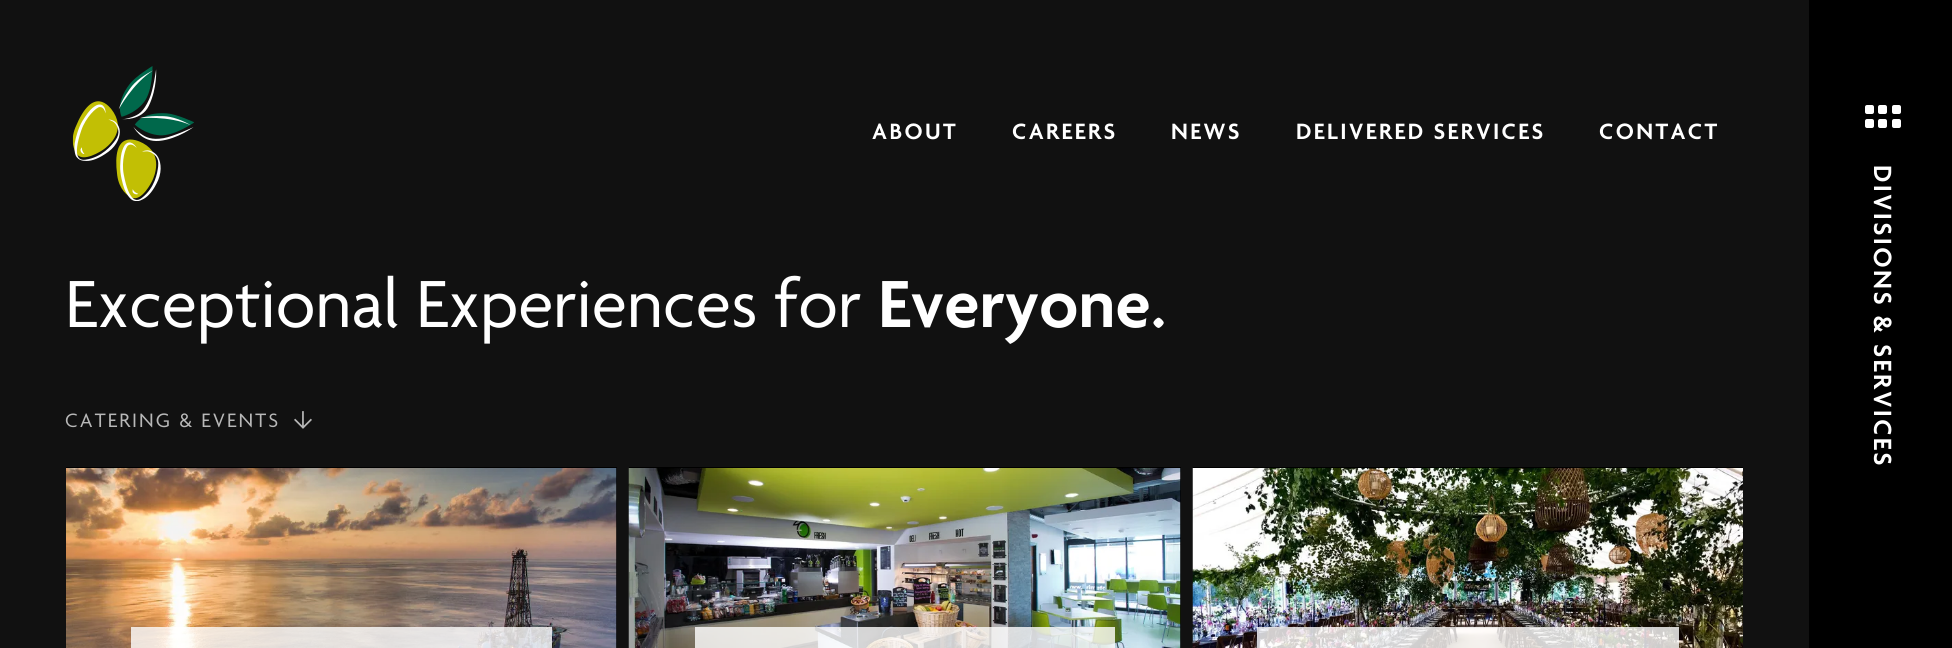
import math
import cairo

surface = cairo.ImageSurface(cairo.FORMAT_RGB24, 1952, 648)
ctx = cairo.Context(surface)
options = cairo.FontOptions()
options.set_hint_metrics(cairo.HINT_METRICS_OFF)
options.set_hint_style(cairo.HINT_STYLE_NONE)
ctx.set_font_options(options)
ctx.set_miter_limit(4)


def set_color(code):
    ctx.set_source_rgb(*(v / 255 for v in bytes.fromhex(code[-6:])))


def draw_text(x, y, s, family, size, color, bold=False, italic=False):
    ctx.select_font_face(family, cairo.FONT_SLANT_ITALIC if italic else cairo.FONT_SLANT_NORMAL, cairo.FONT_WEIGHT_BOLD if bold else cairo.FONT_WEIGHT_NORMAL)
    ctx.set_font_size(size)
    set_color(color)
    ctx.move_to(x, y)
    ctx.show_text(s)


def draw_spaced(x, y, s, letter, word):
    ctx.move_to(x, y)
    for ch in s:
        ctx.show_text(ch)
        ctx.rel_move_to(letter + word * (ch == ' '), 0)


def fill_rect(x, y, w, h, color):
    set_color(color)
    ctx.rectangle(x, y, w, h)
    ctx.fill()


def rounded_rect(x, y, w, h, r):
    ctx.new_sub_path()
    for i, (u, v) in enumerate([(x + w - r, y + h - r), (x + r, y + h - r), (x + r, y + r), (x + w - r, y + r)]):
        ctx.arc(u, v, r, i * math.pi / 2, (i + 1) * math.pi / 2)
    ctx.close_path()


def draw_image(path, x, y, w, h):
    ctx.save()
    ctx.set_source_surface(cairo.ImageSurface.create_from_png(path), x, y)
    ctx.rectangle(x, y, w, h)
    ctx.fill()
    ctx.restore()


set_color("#111111")
ctx.paint()
draw_image("assets/img1.png", 72, 66, 122, 135)
ctx.select_font_face("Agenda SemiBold")
ctx.set_font_size(24)
set_color("#ffffff")
draw_spaced(872, 139, "ABOUT", 2.4, 0)
draw_spaced(1012, 139, "CAREERS", 2.4, 0)
draw_spaced(1171, 139, "NEWS", 2.4, 0)
draw_spaced(1296, 139, "DELIVERED SERVICES", 2.4, 0)
draw_spaced(1599, 139, "CONTACT", 2.4, 0)
draw_text(65, 327, "Exceptional Experiences for", "Agenda", 72, "#ffffff")
draw_text(878, 327, "Everyone.", "Agenda SemiBold", 72, "#ffffff")
ctx.select_font_face("Agenda")
ctx.set_font_size(21)
set_color("#b8b8b8")
draw_spaced(65, 427, "CATERING & EVENTS", 2.1, 0)
draw_image("assets/img2.png", 294, 411, 18, 18)
fill_rect(66, 467, 551, 181, "#000000")
draw_image("assets/img3.png", 66, 468, 551, 180)
ctx.set_source_rgba(1, 1, 1, 0.8)
ctx.rectangle(131, 627, 421, 21)
ctx.fill()
fill_rect(629, 467, 552, 181, "#000000")
draw_image("assets/img4.png", 628, 468, 553, 180)
ctx.set_source_rgba(1, 1, 1, 0.8)
ctx.rectangle(695, 627, 420, 21)
ctx.fill()
fill_rect(1193, 467, 550, 1, "#000000")
draw_image("assets/img5.png", 1192, 468, 551, 180)
ctx.set_source_rgba(1, 1, 1, 0.8)
ctx.rectangle(1257, 627, 422, 21)
ctx.fill()
fill_rect(1809, 0, 143, 648, "#000000")
set_color("#ffffff")
rounded_rect(1865, 105, 9, 9, 2)
ctx.fill()
rounded_rect(1878, 105, 9, 9, 2)
ctx.fill()
rounded_rect(1892, 105, 9, 9, 2)
ctx.fill()
rounded_rect(1865, 119, 9, 9, 2)
ctx.fill()
rounded_rect(1878, 119, 9, 9, 2)
ctx.fill()
rounded_rect(1892, 119, 9, 9, 2)
ctx.fill()
ctx.select_font_face("Agenda SemiBold")
ctx.set_font_size(27)
ctx.save()
ctx.translate(1874, 165)
ctx.rotate(90 * math.pi / 180)
draw_spaced(0, 0, "DIVISIONS & SERVICES", 2.4, 0)
ctx.restore()
surface.write_to_png("output.png")
